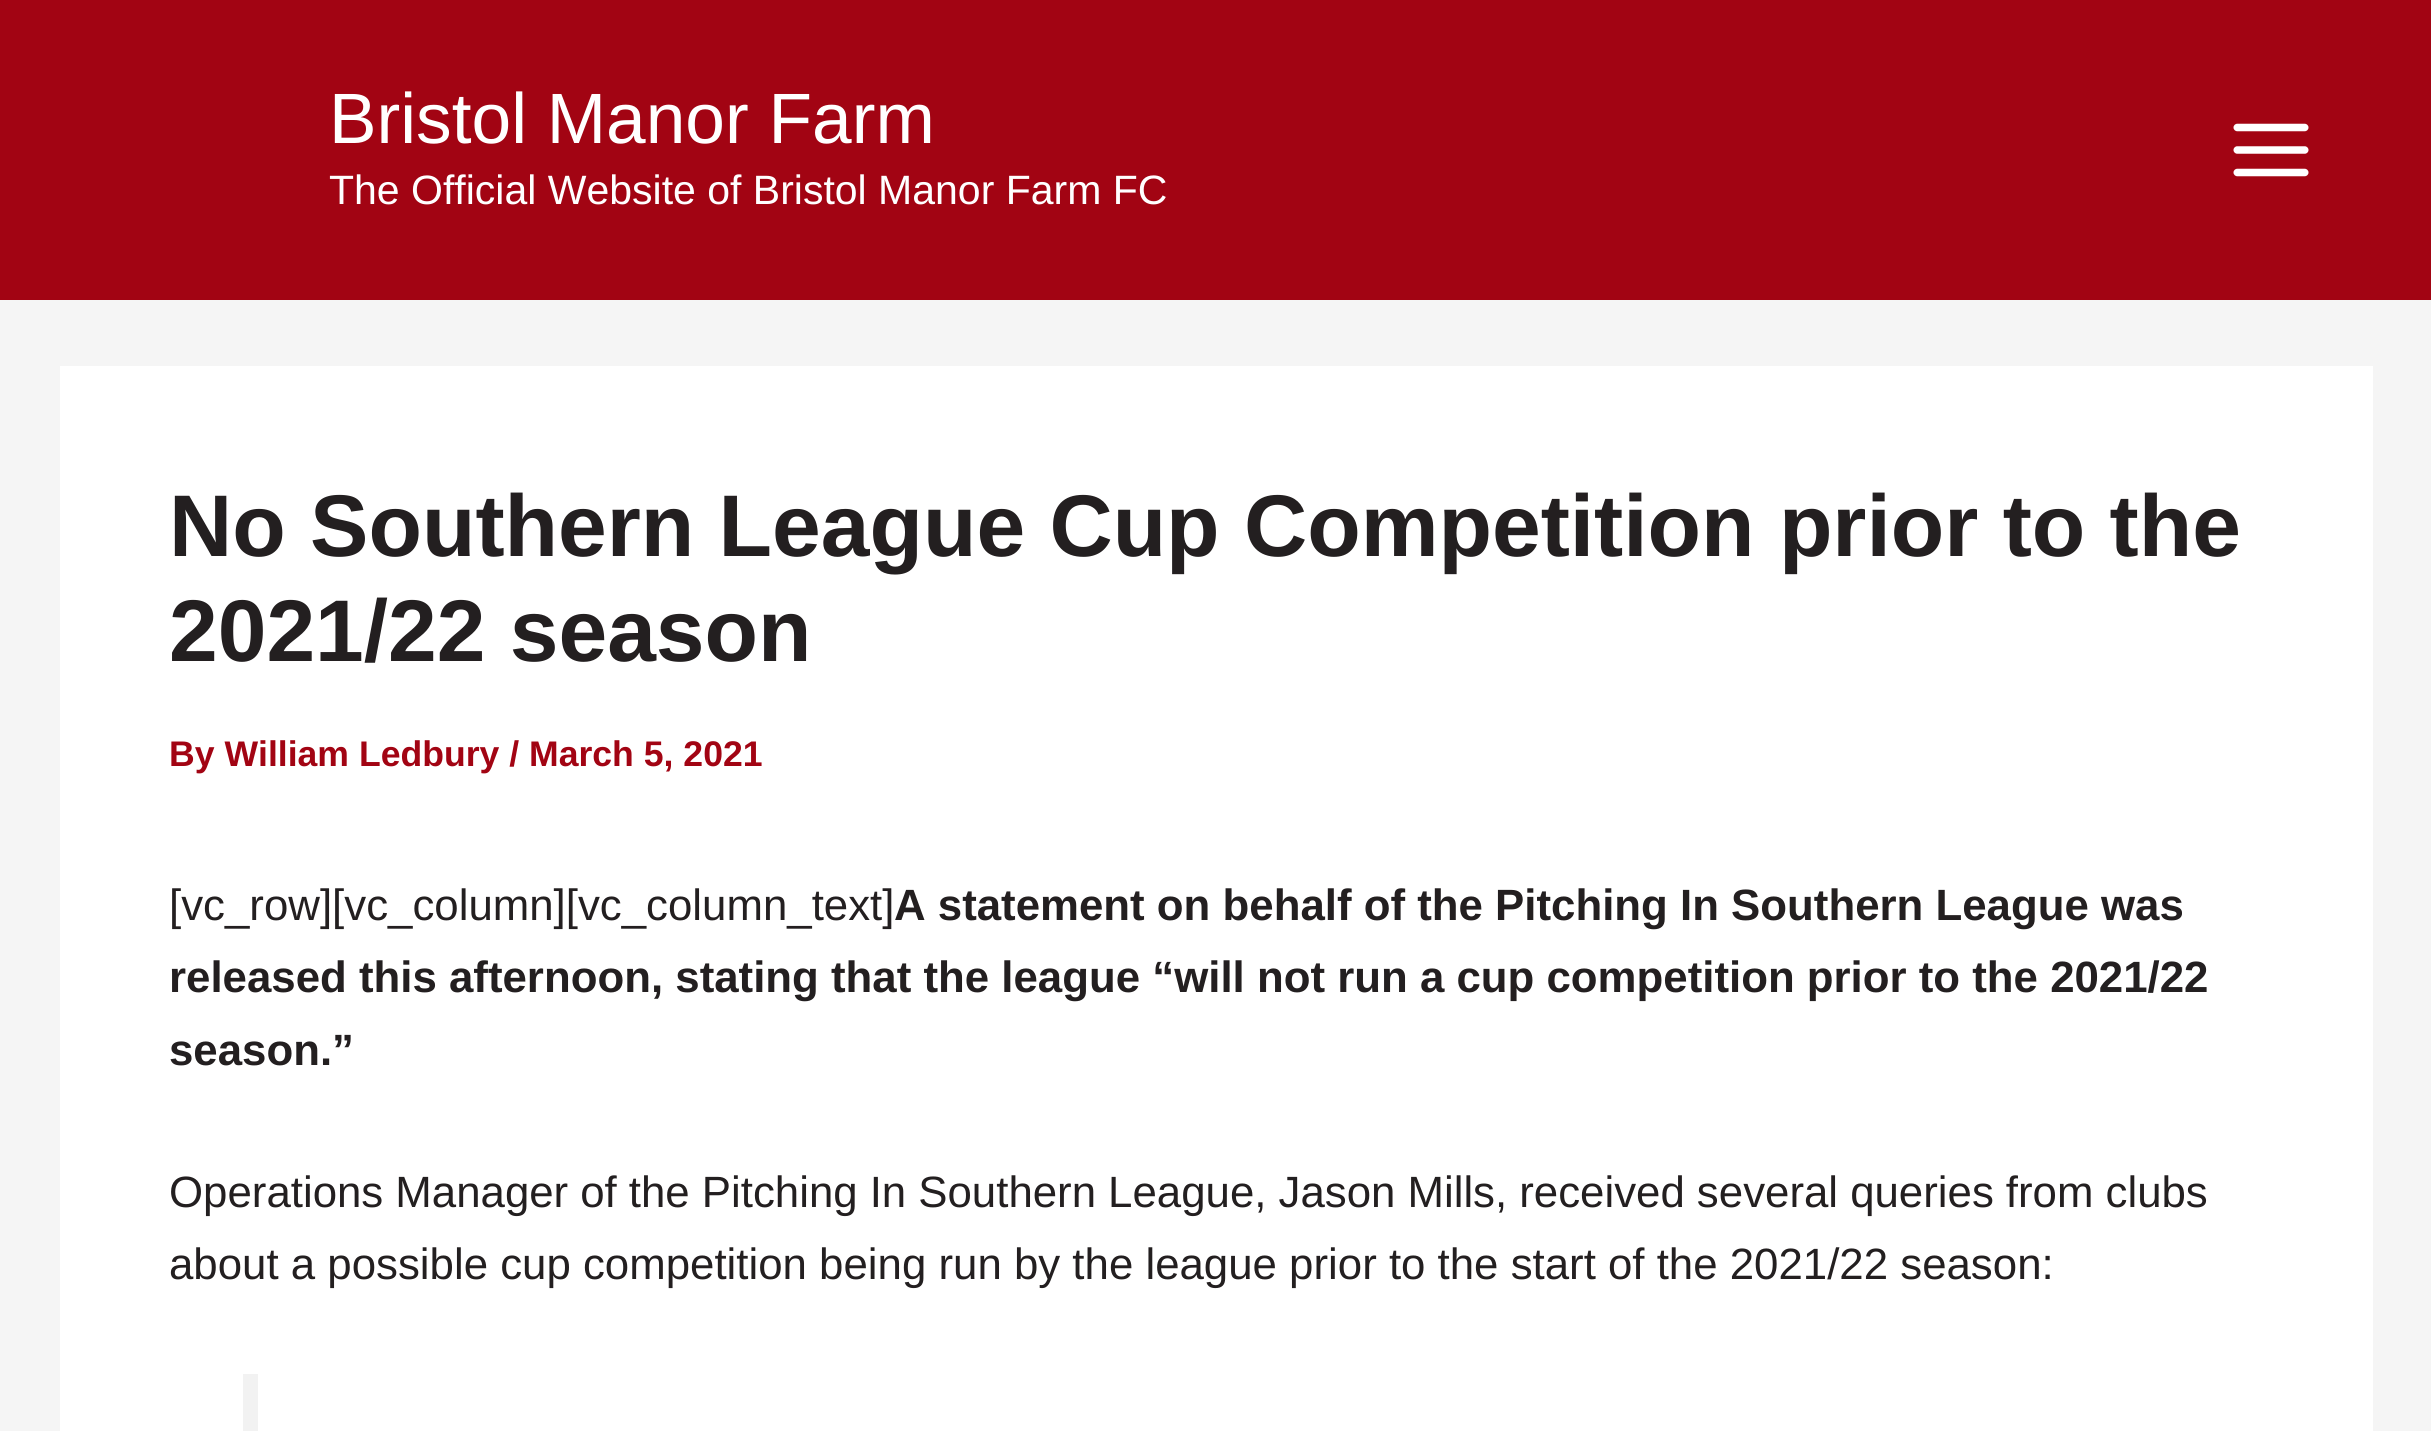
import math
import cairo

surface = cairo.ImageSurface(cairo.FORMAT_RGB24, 2431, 1431)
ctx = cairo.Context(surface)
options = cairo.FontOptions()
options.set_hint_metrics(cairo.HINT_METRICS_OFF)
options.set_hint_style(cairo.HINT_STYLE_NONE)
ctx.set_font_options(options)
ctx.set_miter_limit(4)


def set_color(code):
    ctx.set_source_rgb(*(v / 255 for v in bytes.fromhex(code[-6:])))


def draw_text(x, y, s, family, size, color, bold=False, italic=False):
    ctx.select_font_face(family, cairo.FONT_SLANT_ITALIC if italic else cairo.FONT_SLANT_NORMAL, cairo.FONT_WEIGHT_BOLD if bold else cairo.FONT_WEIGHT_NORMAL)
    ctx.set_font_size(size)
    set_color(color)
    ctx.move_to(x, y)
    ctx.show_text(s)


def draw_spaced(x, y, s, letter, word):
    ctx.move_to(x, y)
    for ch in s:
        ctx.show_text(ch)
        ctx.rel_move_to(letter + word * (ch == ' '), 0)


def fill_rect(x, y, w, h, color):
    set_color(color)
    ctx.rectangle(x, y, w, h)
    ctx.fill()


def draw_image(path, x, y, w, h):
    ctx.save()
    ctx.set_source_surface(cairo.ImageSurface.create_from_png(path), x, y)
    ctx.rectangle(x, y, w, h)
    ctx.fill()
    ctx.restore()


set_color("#f5f5f5")
ctx.paint()
fill_rect(0, 0, 2431, 300, "#a20413")
draw_text(329, 143, "Bristol Manor Farm", "Liberation Sans", 71.25, "#ffffff")
draw_text(329, 204, "The Official Website of Bristol Manor Farm FC", "Liberation Sans", 41, "#ffffff")
draw_image("assets/img1.png", 2233, 123, 76, 54)
fill_rect(60, 366, 2313, 1065, "#ffffff")
draw_text(169, 556, "No Southern League Cup Competition prior to the", "Liberation Sans", 87.55, "#231f20", bold=True)
draw_text(169, 661, "2021/22 season", "Liberation Sans", 87.55, "#231f20", bold=True)
draw_text(169, 766, "By William Ledbury / March 5, 2021", "Liberation Sans", 35.6, "#a20413", bold=True)
draw_text(169, 920, "[vc_row][vc_column][vc_column_text]", "Liberation Sans", 43.8, "#231f20")
draw_text(894, 920, "A statement on behalf of the Pitching In Southern League was", "Liberation Sans", 43.8, "#231f20", bold=True)
draw_text(169, 992, "released this afternoon, stating that the league “will not run a cup competition prior to the 2021/22", "Liberation Sans", 43.8, "#231f20", bold=True)
draw_text(169, 1065, "season.”", "Liberation Sans", 43.8, "#231f20", bold=True)
ctx.select_font_face("Liberation Sans")
draw_spaced(169, 1207, "Operations Manager of the Pitching In Southern League, Jason Mills, received several queries from clubs", 0, -0.1)
draw_text(169, 1279, "about a possible cup competition being run by the league prior to the start of the 2021/22 season:", "Liberation Sans", 43.8, "#231f20")
fill_rect(243, 1374, 15, 57, "#f2f2f2")
surface.write_to_png("output.png")
